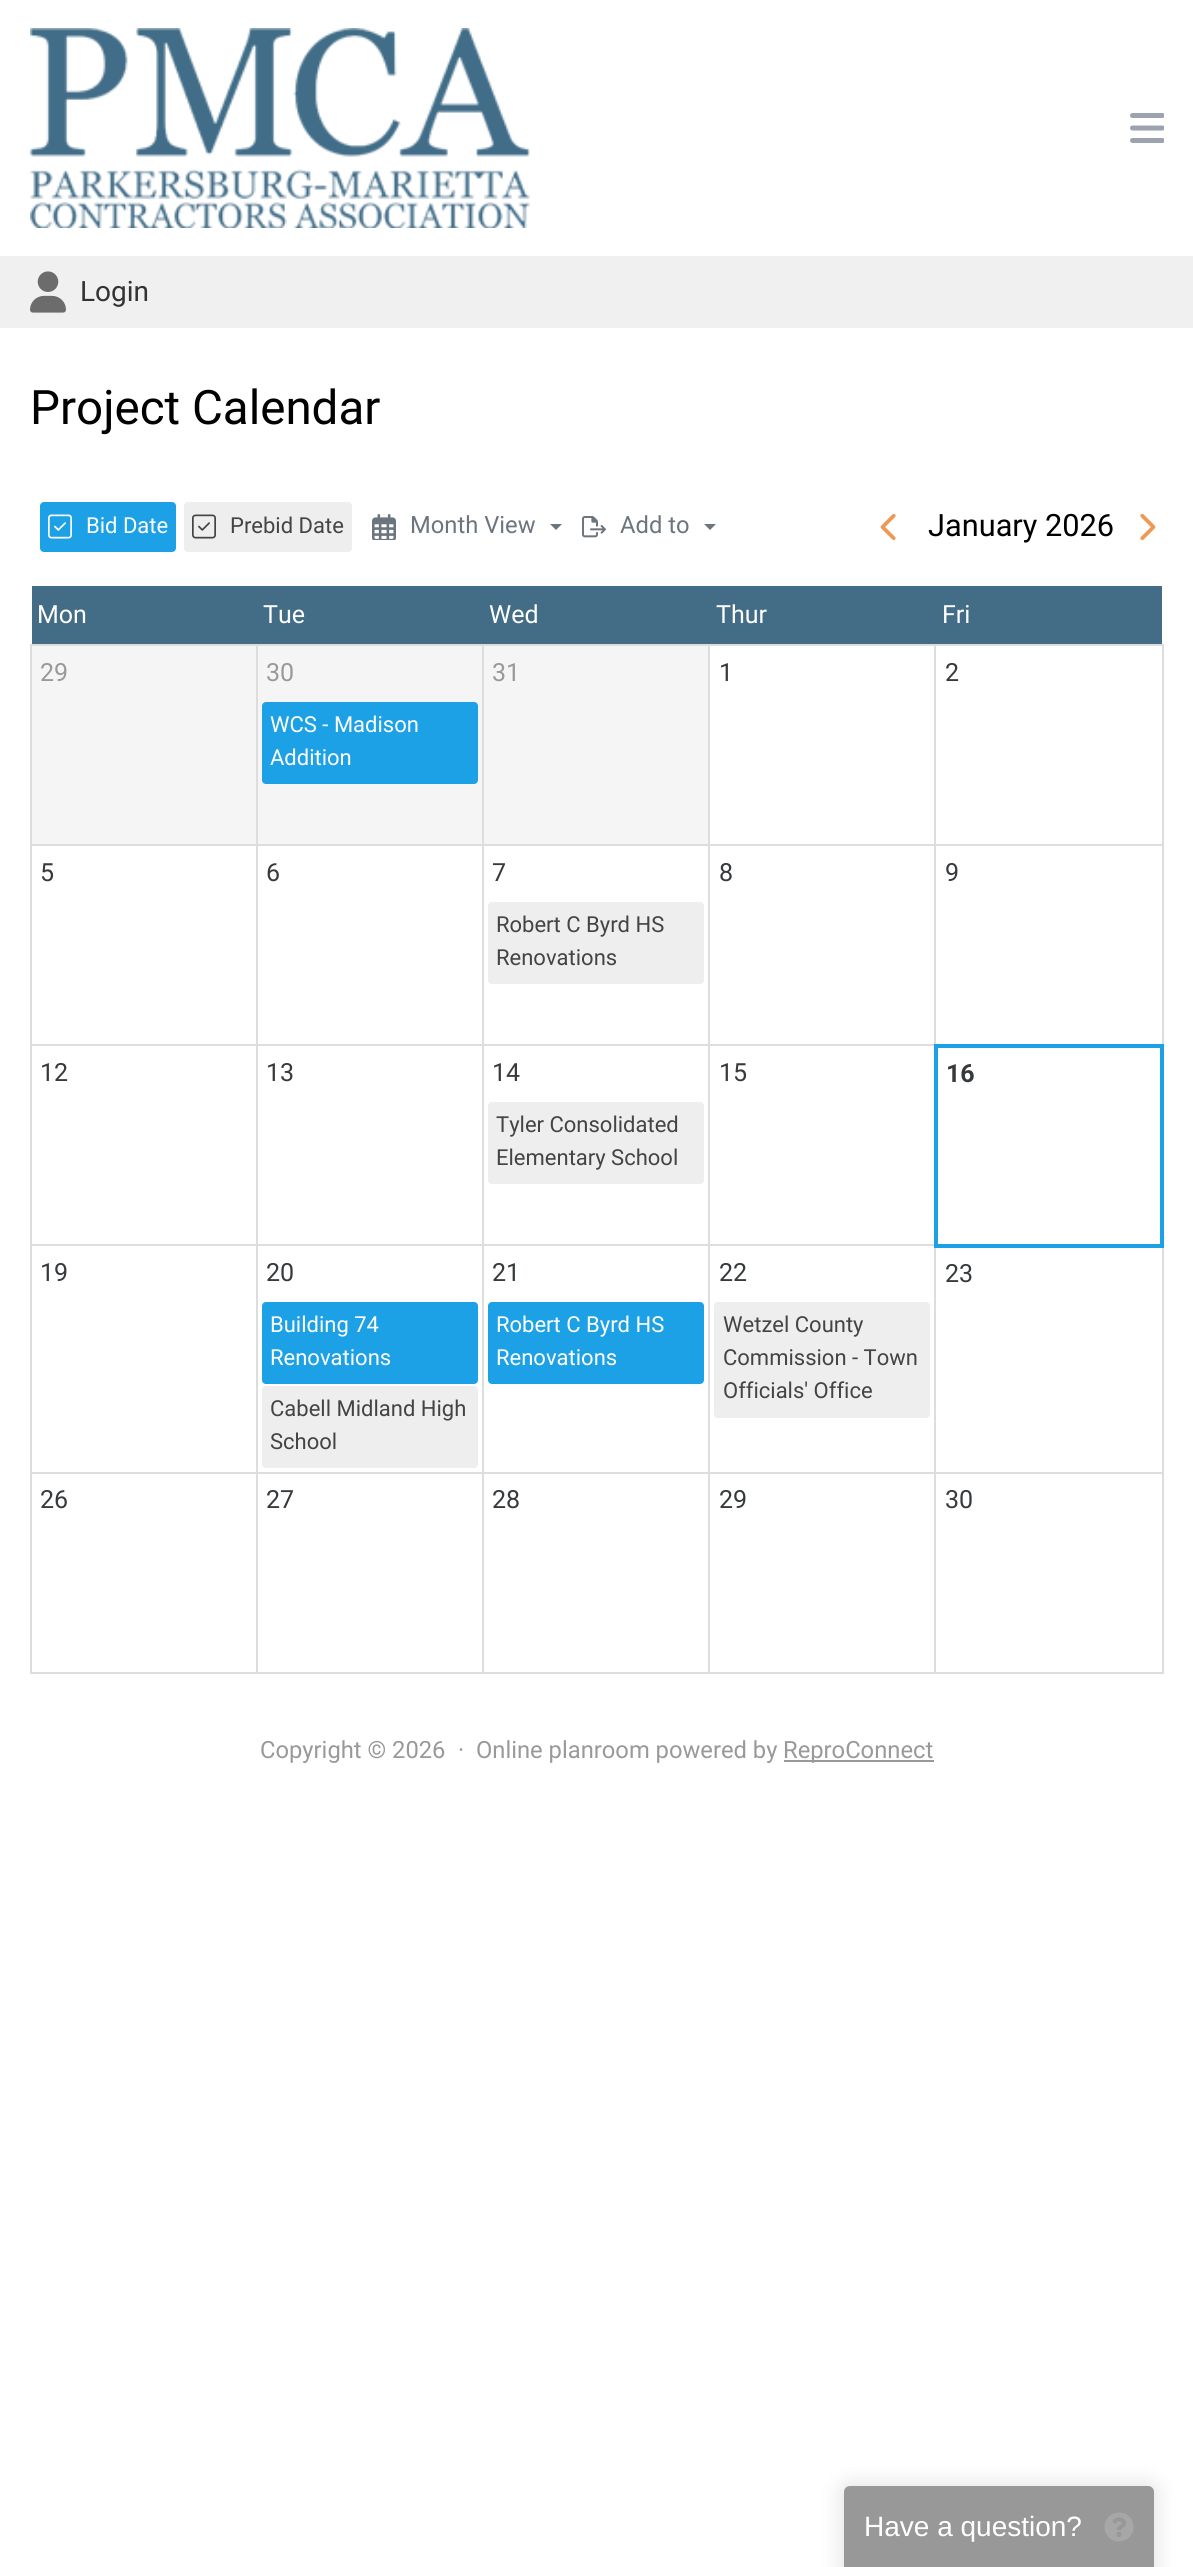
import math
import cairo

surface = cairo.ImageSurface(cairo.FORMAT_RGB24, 1193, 2567)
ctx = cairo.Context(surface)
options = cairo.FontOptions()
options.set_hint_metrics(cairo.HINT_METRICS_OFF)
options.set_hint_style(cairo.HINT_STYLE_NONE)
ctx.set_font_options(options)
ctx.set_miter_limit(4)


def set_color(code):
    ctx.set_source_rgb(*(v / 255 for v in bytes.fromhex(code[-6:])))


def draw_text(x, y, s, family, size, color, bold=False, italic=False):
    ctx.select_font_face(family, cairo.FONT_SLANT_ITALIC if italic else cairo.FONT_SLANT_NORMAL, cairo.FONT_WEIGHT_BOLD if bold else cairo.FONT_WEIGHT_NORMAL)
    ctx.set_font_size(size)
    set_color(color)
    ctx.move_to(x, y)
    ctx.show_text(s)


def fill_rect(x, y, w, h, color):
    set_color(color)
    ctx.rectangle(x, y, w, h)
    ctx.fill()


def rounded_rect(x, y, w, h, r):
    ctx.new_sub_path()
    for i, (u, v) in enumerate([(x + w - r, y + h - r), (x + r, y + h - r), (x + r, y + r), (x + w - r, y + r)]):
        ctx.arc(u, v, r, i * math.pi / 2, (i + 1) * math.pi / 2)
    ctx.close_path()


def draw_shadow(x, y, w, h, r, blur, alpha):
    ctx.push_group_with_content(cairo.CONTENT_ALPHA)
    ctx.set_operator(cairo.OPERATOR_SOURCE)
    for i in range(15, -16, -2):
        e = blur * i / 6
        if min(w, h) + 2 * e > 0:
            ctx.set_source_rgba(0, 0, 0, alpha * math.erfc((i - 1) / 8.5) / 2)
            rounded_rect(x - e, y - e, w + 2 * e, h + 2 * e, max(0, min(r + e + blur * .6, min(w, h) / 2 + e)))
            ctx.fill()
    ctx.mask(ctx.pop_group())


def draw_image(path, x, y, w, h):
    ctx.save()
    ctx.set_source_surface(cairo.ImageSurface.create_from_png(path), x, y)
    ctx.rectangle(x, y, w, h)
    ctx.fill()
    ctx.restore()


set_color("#ffffff")
ctx.paint()
draw_image("assets/img1.png", 30, 28, 500, 200)
draw_image("assets/img2.png", 1130, 113, 34, 30)
fill_rect(0, 256, 1193, 72, "#f0f0f0")
draw_image("assets/img3.png", 30, 271, 36, 42)
draw_text(80, 301, "Login", "Roboto", 28, "#333333")
draw_text(30, 424, "Project Calendar", "Roboto", 47.5, "#000000")
set_color("#1da1e6")
rounded_rect(40, 502, 136, 50, 4)
ctx.fill()
draw_image("assets/img4.png", 48, 514, 24, 25)
draw_text(86, 533, "Bid Date", "Roboto", 22, "#ffffff")
set_color("#eeeeee")
rounded_rect(184, 502, 168, 50, 4)
ctx.fill()
draw_image("assets/img5.png", 192, 514, 24, 25)
draw_text(230, 533, "Prebid Date", "Roboto", 22, "#444444")
draw_image("assets/img6.png", 372, 514, 24, 26)
draw_text(410, 533, "Month View", "Roboto", 23.75, "#6c757d")
ctx.new_path()
ctx.move_to(550, 524)
ctx.line_to(562, 524)
ctx.line_to(556, 530)
ctx.close_path()
ctx.fill()
draw_image("assets/img7.png", 582, 516, 24, 22)
draw_text(620, 533, "Add to", "Roboto", 23.75, "#6c757d")
ctx.new_path()
ctx.move_to(704, 524)
ctx.line_to(716, 524)
ctx.line_to(710, 530)
ctx.close_path()
ctx.fill()
draw_image("assets/img8.png", 880, 513, 16, 28)
draw_text(928, 536, "January 2026", "Roboto", 30.75, "#000000")
draw_image("assets/img9.png", 1140, 513, 16, 28)
fill_rect(32, 586, 1130, 58, "#436d87")
draw_text(37, 623, "Mon", "Roboto", 25, "#ffffff")
draw_text(263, 623, "Tue", "Roboto", 25, "#ffffff")
draw_text(489, 623, "Wed", "Roboto", 25, "#ffffff")
draw_text(716, 623, "Thur", "Roboto", 25, "#ffffff")
draw_text(942, 623, "Fri", "Roboto", 25, "#ffffff")
fill_rect(32, 646, 224, 198, "#f5f5f5")
fill_rect(934, 644, 230, 2, "#dddddd")
fill_rect(934, 844, 230, 2, "#dddddd")
fill_rect(708, 1044, 228, 2, "#dddddd")
fill_rect(934, 844, 2, 202, "#dddddd")
fill_rect(708, 844, 228, 2, "#dddddd")
fill_rect(934, 644, 2, 202, "#dddddd")
fill_rect(708, 644, 228, 2, "#dddddd")
fill_rect(934, 1472, 230, 2, "#dddddd")
fill_rect(1162, 1244, 2, 430, "#dddddd")
fill_rect(934, 1672, 230, 2, "#dddddd")
fill_rect(934, 1472, 2, 202, "#dddddd")
fill_rect(708, 1472, 228, 2, "#dddddd")
fill_rect(934, 1244, 2, 230, "#dddddd")
fill_rect(708, 1244, 228, 2, "#dddddd")
fill_rect(708, 1672, 228, 2, "#dddddd")
fill_rect(708, 1472, 2, 202, "#dddddd")
fill_rect(482, 1472, 228, 2, "#dddddd")
fill_rect(708, 1244, 2, 230, "#dddddd")
fill_rect(482, 1244, 228, 2, "#dddddd")
fill_rect(708, 1044, 2, 202, "#dddddd")
fill_rect(482, 1044, 228, 2, "#dddddd")
fill_rect(708, 844, 2, 202, "#dddddd")
fill_rect(482, 844, 228, 2, "#dddddd")
fill_rect(708, 644, 2, 202, "#dddddd")
fill_rect(482, 644, 228, 2, "#dddddd")
fill_rect(482, 1672, 228, 2, "#dddddd")
fill_rect(482, 1472, 2, 202, "#dddddd")
fill_rect(256, 1472, 228, 2, "#dddddd")
fill_rect(482, 1244, 2, 230, "#dddddd")
fill_rect(256, 1244, 228, 2, "#dddddd")
fill_rect(482, 1044, 2, 202, "#dddddd")
fill_rect(256, 1044, 228, 2, "#dddddd")
fill_rect(482, 844, 2, 202, "#dddddd")
fill_rect(256, 844, 228, 2, "#dddddd")
fill_rect(482, 644, 2, 202, "#dddddd")
fill_rect(256, 644, 228, 2, "#dddddd")
fill_rect(256, 1672, 228, 2, "#dddddd")
fill_rect(256, 1472, 2, 202, "#dddddd")
fill_rect(30, 1472, 228, 2, "#dddddd")
fill_rect(256, 1244, 2, 230, "#dddddd")
fill_rect(30, 1244, 228, 2, "#dddddd")
fill_rect(256, 1044, 2, 202, "#dddddd")
fill_rect(30, 1044, 228, 2, "#dddddd")
fill_rect(256, 844, 2, 202, "#dddddd")
fill_rect(30, 844, 228, 2, "#dddddd")
fill_rect(256, 644, 2, 202, "#dddddd")
fill_rect(30, 644, 228, 2, "#dddddd")
fill_rect(30, 1672, 228, 2, "#dddddd")
fill_rect(30, 1472, 2, 202, "#dddddd")
fill_rect(30, 1244, 2, 230, "#dddddd")
fill_rect(30, 1044, 2, 202, "#dddddd")
fill_rect(30, 844, 2, 202, "#dddddd")
fill_rect(30, 644, 2, 202, "#dddddd")
draw_text(40, 681, "29", "Roboto", 25, "#999999")
fill_rect(258, 646, 224, 198, "#f5f5f5")
draw_text(266, 681, "30", "Roboto", 25, "#999999")
set_color("#1da1e6")
rounded_rect(262, 702, 216, 82, 4)
ctx.fill()
draw_text(270, 732, "WCS - Madison", "Roboto", 22, "#ffffff")
draw_text(270, 765, "Addition", "Roboto", 22, "#ffffff")
fill_rect(484, 646, 224, 198, "#f5f5f5")
draw_text(492, 681, "31", "Roboto", 25, "#999999")
draw_text(719, 681, "1", "Roboto", 25, "#373a3c")
fill_rect(1162, 844, 2, 202, "#dddddd")
fill_rect(1162, 644, 2, 202, "#dddddd")
draw_text(945, 681, "2", "Roboto", 25, "#373a3c")
draw_text(40, 881, "5", "Roboto", 25, "#373a3c")
draw_text(266, 881, "6", "Roboto", 25, "#373a3c")
draw_text(492, 881, "7", "Roboto", 25, "#373a3c")
set_color("#eeeeee")
rounded_rect(488, 902, 216, 82, 4)
ctx.fill()
draw_text(496, 932, "Robert C Byrd HS", "Roboto", 22, "#444444")
draw_text(496, 965, "Renovations", "Roboto", 22, "#444444")
draw_text(719, 881, "8", "Roboto", 25, "#373a3c")
draw_text(945, 881, "9", "Roboto", 25, "#373a3c")
draw_text(40, 1081, "12", "Roboto", 25, "#373a3c")
draw_text(266, 1081, "13", "Roboto", 25, "#373a3c")
draw_text(492, 1081, "14", "Roboto", 25, "#373a3c")
set_color("#eeeeee")
rounded_rect(488, 1102, 216, 82, 4)
ctx.fill()
draw_text(496, 1132, "Tyler Consolidated", "Roboto", 22, "#444444")
draw_text(496, 1165, "Elementary School", "Roboto", 22, "#444444")
draw_text(719, 1081, "15", "Roboto", 25, "#373a3c")
fill_rect(934, 1044, 230, 4, "#1da1e6")
fill_rect(1160, 1044, 4, 204, "#1da1e6")
fill_rect(934, 1244, 230, 4, "#1da1e6")
fill_rect(934, 1044, 4, 204, "#1da1e6")
draw_text(946, 1082, "16", "Roboto", 25, "#373a3c", bold=True)
draw_text(40, 1281, "19", "Roboto", 25, "#373a3c")
draw_text(266, 1281, "20", "Roboto", 25, "#373a3c")
set_color("#1da1e6")
rounded_rect(262, 1302, 216, 82, 4)
ctx.fill()
draw_text(270, 1332, "Building 74", "Roboto", 22, "#ffffff")
draw_text(270, 1365, "Renovations", "Roboto", 22, "#ffffff")
set_color("#eeeeee")
rounded_rect(262, 1386, 216, 82, 4)
ctx.fill()
draw_text(270, 1416, "Cabell Midland High", "Roboto", 22, "#444444")
draw_text(270, 1449, "School", "Roboto", 22, "#444444")
draw_text(492, 1281, "21", "Roboto", 25, "#373a3c")
set_color("#1da1e6")
rounded_rect(488, 1302, 216, 82, 4)
ctx.fill()
draw_text(496, 1332, "Robert C Byrd HS", "Roboto", 22, "#ffffff")
draw_text(496, 1365, "Renovations", "Roboto", 22, "#ffffff")
draw_text(719, 1281, "22", "Roboto", 25, "#373a3c")
set_color("#eeeeee")
rounded_rect(714, 1302, 216, 116, 4)
ctx.fill()
draw_text(723, 1332, "Wetzel County", "Roboto", 22, "#444444")
draw_text(723, 1365, "Commission - Town", "Roboto", 22, "#444444")
draw_text(723, 1398, "Officials' Office", "Roboto", 22, "#444444")
draw_text(945, 1282, "23", "Roboto", 25, "#373a3c")
draw_text(40, 1508, "26", "Roboto", 25, "#373a3c")
draw_text(266, 1508, "27", "Roboto", 25, "#373a3c")
draw_text(492, 1508, "28", "Roboto", 25, "#373a3c")
draw_text(719, 1508, "29", "Roboto", 25, "#373a3c")
draw_text(945, 1508, "30", "Roboto", 25, "#373a3c")
draw_text(260, 1758, "Copyright © 2026", "Roboto", 23.75, "#999999")
draw_text(458, 1758, "·", "Roboto", 23.75, "#999999")
draw_text(476, 1758, "Online planroom powered by", "Roboto", 23.75, "#999999")
fill_rect(784, 1760, 150, 2, "#999999")
draw_text(783, 1758, "ReproConnect", "Roboto", 23.75, "#999999")
ctx.save()
ctx.set_fill_rule(cairo.FILL_RULE_EVEN_ODD)
ctx.new_path()
ctx.move_to(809, 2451)
ctx.line_to(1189, 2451)
ctx.line_to(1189, 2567)
ctx.line_to(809, 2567)
ctx.close_path()
ctx.move_to(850, 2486)
ctx.line_to(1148, 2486)
ctx.curve_to(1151.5, 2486, 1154, 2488.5, 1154, 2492)
ctx.line_to(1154, 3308)
ctx.line_to(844, 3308)
ctx.line_to(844, 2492)
ctx.curve_to(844, 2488.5, 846.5, 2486, 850, 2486)
ctx.close_path()
ctx.clip()
set_color("#000000")
draw_shadow(840, 2482, 318, 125, 10, 10, 0.1)
ctx.restore()
ctx.set_source_rgba(0.2, 0.2, 0.2, 0.5)
ctx.new_path()
ctx.move_to(850, 2486)
ctx.line_to(1148, 2486)
ctx.curve_to(1151.5, 2486, 1154, 2488.5, 1154, 2492)
ctx.line_to(1154, 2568)
ctx.line_to(844, 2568)
ctx.line_to(844, 2492)
ctx.curve_to(844, 2488.5, 846.5, 2486, 850, 2486)
ctx.close_path()
ctx.fill()
draw_text(864, 2536, "Have a question?", "Liberation Sans", 28, "#ffffff")
draw_image("assets/img10.png", 1104, 2512, 30, 30)
surface.write_to_png("output.png")
